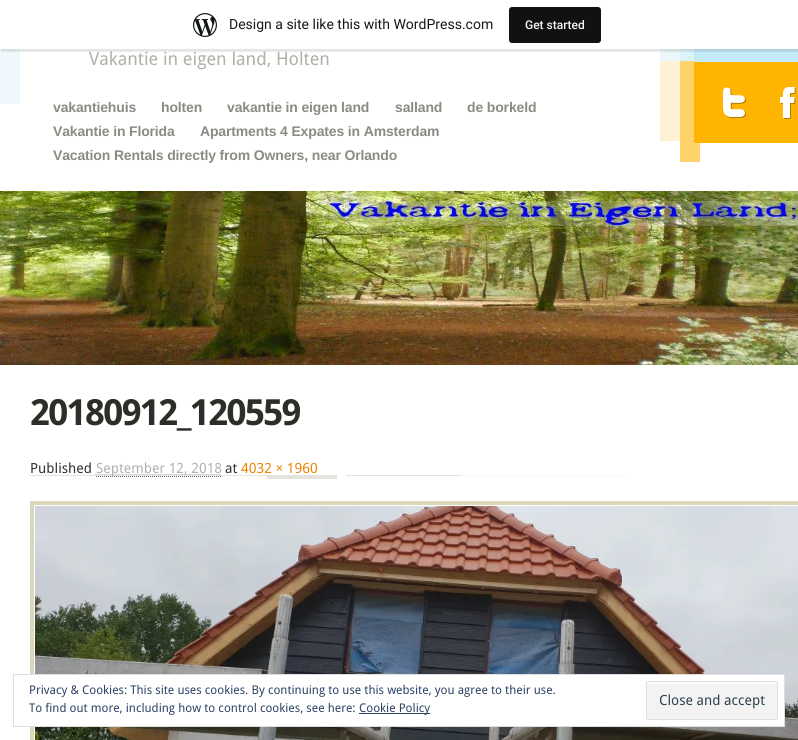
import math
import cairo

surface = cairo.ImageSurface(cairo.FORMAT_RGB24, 798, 740)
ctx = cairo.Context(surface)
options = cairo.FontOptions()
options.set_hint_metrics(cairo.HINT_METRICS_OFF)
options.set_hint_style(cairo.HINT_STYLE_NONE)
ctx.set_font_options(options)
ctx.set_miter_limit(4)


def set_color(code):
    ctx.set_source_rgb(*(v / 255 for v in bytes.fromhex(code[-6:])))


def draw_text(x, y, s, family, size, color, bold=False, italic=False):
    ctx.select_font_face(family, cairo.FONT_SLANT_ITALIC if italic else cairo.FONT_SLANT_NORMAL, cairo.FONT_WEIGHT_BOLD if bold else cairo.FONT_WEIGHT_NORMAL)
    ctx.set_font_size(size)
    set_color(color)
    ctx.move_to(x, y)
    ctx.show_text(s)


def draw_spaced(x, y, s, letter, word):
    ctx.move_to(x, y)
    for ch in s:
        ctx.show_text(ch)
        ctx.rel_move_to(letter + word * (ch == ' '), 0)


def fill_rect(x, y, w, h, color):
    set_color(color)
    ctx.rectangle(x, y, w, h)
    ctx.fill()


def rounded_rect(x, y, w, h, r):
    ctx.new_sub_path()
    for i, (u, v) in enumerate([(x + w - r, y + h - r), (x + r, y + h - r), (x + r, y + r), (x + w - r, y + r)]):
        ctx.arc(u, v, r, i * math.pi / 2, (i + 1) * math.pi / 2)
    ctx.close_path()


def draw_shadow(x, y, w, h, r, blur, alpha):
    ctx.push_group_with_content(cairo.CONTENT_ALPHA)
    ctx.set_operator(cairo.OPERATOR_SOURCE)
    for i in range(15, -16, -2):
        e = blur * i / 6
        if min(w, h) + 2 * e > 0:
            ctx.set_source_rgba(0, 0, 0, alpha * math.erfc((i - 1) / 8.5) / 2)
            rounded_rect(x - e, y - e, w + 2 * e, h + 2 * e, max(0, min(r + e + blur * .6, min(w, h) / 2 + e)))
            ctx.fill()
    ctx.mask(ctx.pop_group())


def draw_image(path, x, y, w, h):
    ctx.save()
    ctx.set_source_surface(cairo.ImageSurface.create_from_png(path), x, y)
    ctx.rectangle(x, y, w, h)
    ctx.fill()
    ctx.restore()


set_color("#ffffff")
ctx.paint()
fill_rect(0, 49, 20, 55, "#eff9fd")
draw_image("assets/img2.png", 660, 49, 40, 113)
fill_rect(694, 49, 104, 13, "#c3eaf8")
set_color("#000000")
draw_shadow(0, 1, 798, 49, 0, 1, 0.05)
ctx.set_source_rgba(0, 0, 0, 0.08)
ctx.new_path()
ctx.move_to(1, 49)
ctx.line_to(1, 52)
ctx.line_to(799, 52)
ctx.line_to(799, 3)
ctx.line_to(798, 3)
ctx.line_to(798, 49)
ctx.close_path()
ctx.fill()
fill_rect(0, 0, 798, 49, "#ffffff")
draw_image("assets/img1.png", 193, 13, 24, 24)
draw_text(229, 29, "Design a site like this with WordPress.com", "Roboto", 14, "#171717")
set_color("#111111")
rounded_rect(509, 7, 92, 36, 3)
ctx.fill()
draw_text(525, 29, "Get started", "Roboto Medium", 12, "#f6f7f7")
draw_text(89, 65, "Vakantie in eigen land, Holten", "Droid Sans", 18, "#b0b1a8")
ctx.select_font_face("Liberation Sans", cairo.FONT_SLANT_NORMAL, cairo.FONT_WEIGHT_BOLD)
ctx.set_font_size(14)
set_color("#8a8b82")
draw_spaced(53, 112, "vakantiehuis", -0.15, 0)
draw_spaced(161, 112, "holten", -0.15, 0)
draw_spaced(227, 112, "vakantie in eigen land", -0.15, 0)
draw_spaced(395, 112, "salland", -0.15, 0)
draw_spaced(467, 112, "de borkeld", -0.15, 0)
draw_spaced(53, 136, "Vakantie in Florida", -0.15, 0)
draw_spaced(200, 136, "Apartments 4 Expates in Amsterdam", -0.15, 0)
draw_spaced(53, 160, "Vacation Rentals directly from Owners, near Orlando", -0.15, 0)
fill_rect(694, 62, 104, 81, "#ffb400")
draw_image("assets/img3.png", 722, 87, 24, 31)
draw_image("assets/img4.png", 780, 87, 16, 32)
draw_image("assets/img5.png", 0, 191, 798, 174)
draw_image("assets/img6.png", 30, 475, 599, 4)
ctx.select_font_face("Droid Sans", cairo.FONT_SLANT_NORMAL, cairo.FONT_WEIGHT_BOLD)
ctx.set_font_size(36)
set_color("#2e2e29")
draw_spaced(30, 425, "20180912_120559", -1.5, 0)
draw_text(30, 473, "Published", "Droid Sans", 14, "#333333")
ctx.new_path()
ctx.move_to(96, 476.5)
ctx.line_to(222, 476.5)
set_color("#666666")
ctx.set_line_width(1)
ctx.set_dash([1, 1])
ctx.stroke()
ctx.new_path()
ctx.move_to(95.5, 474.5)
ctx.line_to(221.5, 474.5)
set_color("#b1b1b1")
ctx.stroke()
draw_text(96, 473, "September 12, 2018", "Droid Sans", 14, "#b1b1b1")
draw_text(225, 473, "at", "Droid Sans", 14, "#333333")
draw_text(241, 473, "4032 × 1960", "Droid Sans", 14, "#ec8500")
ctx.rectangle(32, 503, 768, 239)
set_color("#d9d8bb")
ctx.set_line_width(4)
ctx.set_dash([])
ctx.stroke()
draw_image("assets/img7.png", 35, 506, 763, 234)
fill_rect(30, 675, 754, 51, "#ffffff")
ctx.rectangle(13.5, 674.5, 771, 52)
set_color("#dedede")
ctx.set_line_width(1)
ctx.stroke()
draw_text(29, 694, "Privacy & Cookies: This site uses cookies. By continuing to use this website, you agree to their use.", "Droid Sans", 12, "#2e4467")
draw_text(29, 712, "To find out more, including how to control cookies, see here:", "Droid Sans", 12, "#2e4467")
fill_rect(359, 713, 71, 1, "#2e4467")
draw_text(359, 712, "Cookie Policy", "Droid Sans", 12, "#2e4467")
set_color("#f3f3f3")
rounded_rect(646, 681, 132, 39, 3)
ctx.fill()
set_color("#ffffff")
ctx.new_path()
ctx.move_to(649, 684)
ctx.line_to(775, 684)
ctx.curve_to(776, 684, 777, 685, 777, 686)
ctx.line_to(777, 684)
ctx.curve_to(777, 683, 776, 682, 775, 682)
ctx.line_to(649, 682)
ctx.curve_to(648, 682, 647, 683, 647, 684)
ctx.line_to(647, 686)
ctx.curve_to(647, 685, 648, 684, 649, 684)
ctx.close_path()
ctx.fill()
rounded_rect(646.5, 681.5, 131, 38, 2.5)
set_color("#dedede")
ctx.stroke()
draw_text(659, 705, "Close and accept", "Droid Sans", 14, "#2e4453")
surface.write_to_png("output.png")
